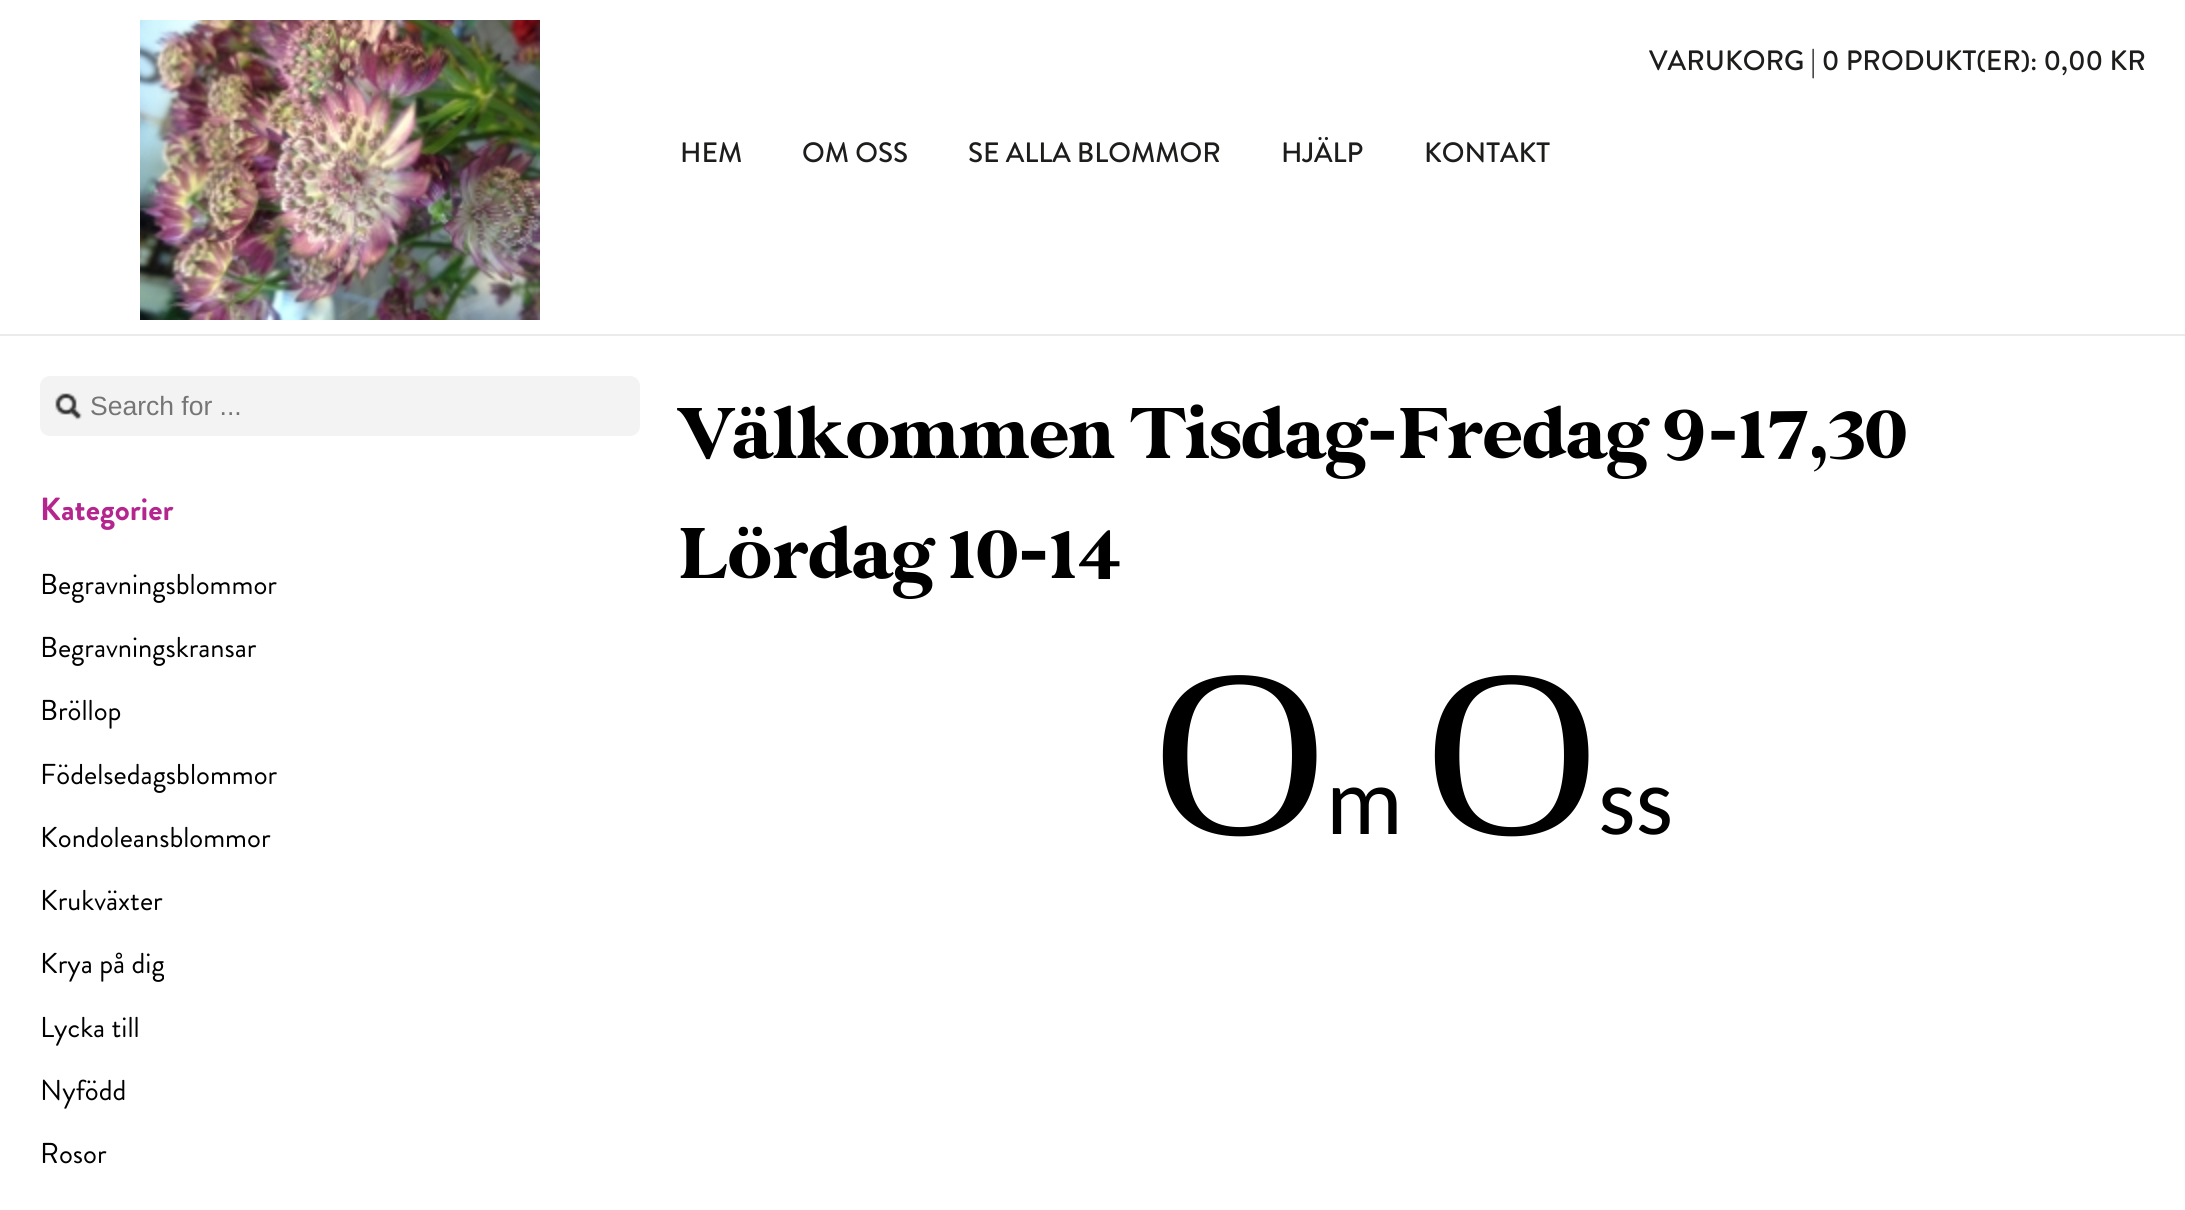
import math
import cairo

surface = cairo.ImageSurface(cairo.FORMAT_RGB24, 2185, 1210)
ctx = cairo.Context(surface)
options = cairo.FontOptions()
options.set_hint_metrics(cairo.HINT_METRICS_OFF)
options.set_hint_style(cairo.HINT_STYLE_NONE)
ctx.set_font_options(options)
ctx.set_miter_limit(4)


def set_color(code):
    ctx.set_source_rgb(*(v / 255 for v in bytes.fromhex(code[-6:])))


def draw_text(x, y, s, family, size, color, bold=False, italic=False):
    ctx.select_font_face(family, cairo.FONT_SLANT_ITALIC if italic else cairo.FONT_SLANT_NORMAL, cairo.FONT_WEIGHT_BOLD if bold else cairo.FONT_WEIGHT_NORMAL)
    ctx.set_font_size(size)
    set_color(color)
    ctx.move_to(x, y)
    ctx.show_text(s)


def fill_rect(x, y, w, h, color):
    set_color(color)
    ctx.rectangle(x, y, w, h)
    ctx.fill()


def rounded_rect(x, y, w, h, r):
    ctx.new_sub_path()
    for i, (u, v) in enumerate([(x + w - r, y + h - r), (x + r, y + h - r), (x + r, y + r), (x + w - r, y + r)]):
        ctx.arc(u, v, r, i * math.pi / 2, (i + 1) * math.pi / 2)
    ctx.close_path()


def draw_image(path, x, y, w, h):
    ctx.save()
    ctx.set_source_surface(cairo.ImageSurface.create_from_png(path), x, y)
    ctx.rectangle(x, y, w, h)
    ctx.fill()
    ctx.restore()


set_color("#ffffff")
ctx.paint()
fill_rect(0, 334, 2185, 2, "#ebebeb")
draw_image("assets/img1.png", 140, 20, 400, 300)
draw_text(1649, 70, "VARUKORG | 0 PRODUKT(ER): 0,00 KR", "Brandon Grotesque Medium", 28, "#1d1d1b")
draw_text(680, 162, "HEM", "Brandon Grotesque Medium", 28, "#1d1d1b")
draw_text(802, 162, "OM OSS", "Brandon Grotesque Medium", 28, "#1d1d1b")
draw_text(968, 162, "SE ALLA BLOMMOR", "Brandon Grotesque Medium", 28, "#1d1d1b")
draw_text(1281, 162, "HJÄLP", "Brandon Grotesque Medium", 28, "#1d1d1b")
draw_text(1424, 162, "KONTAKT", "Brandon Grotesque Medium", 28, "#1d1d1b")
set_color("#f3f3f3")
rounded_rect(40, 376, 600, 60, 10)
ctx.fill()
draw_image("assets/img2.png", 55, 393, 27, 27)
draw_text(90, 415, "Search for ...", "Liberation Sans", 26.5, "#757575")
draw_text(40, 520, "Kategorier", "Brandon Grotesque", 32, "#b5258e", bold=True)
draw_text(40, 594, "Begravningsblommor", "Brandon Grotesque", 28.75, "#000000")
draw_text(40, 657, "Begravningskransar", "Brandon Grotesque", 28.75, "#000000")
draw_text(40, 720, "Bröllop", "Brandon Grotesque", 28.75, "#000000")
draw_text(40, 784, "Födelsedagsblommor", "Brandon Grotesque", 28.75, "#000000")
draw_text(40, 847, "Kondoleansblommor", "Brandon Grotesque", 28.75, "#000000")
draw_text(40, 910, "Krukväxter", "Brandon Grotesque", 28.75, "#000000")
draw_text(40, 973, "Krya på dig", "Brandon Grotesque", 28.75, "#000000")
draw_text(40, 1037, "Lycka till", "Brandon Grotesque", 28.75, "#000000")
draw_text(40, 1100, "Nyfödd", "Brandon Grotesque", 28.75, "#000000")
draw_text(40, 1163, "Rosor", "Brandon Grotesque", 28.75, "#000000")
draw_text(680, 458, "Välkommen Tisdag-Fredag 9-17,30", "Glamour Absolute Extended", 80, "#000000")
draw_text(680, 578, "Lördag 10-14", "Glamour Absolute Extended", 80, "#000000")
draw_text(1153, 834, "O", "Liberation Serif", 240, "#000000")
draw_text(1326, 834, "m", "Carlito", 96, "#000000")
draw_text(1425, 834, "O", "Liberation Serif", 240, "#000000")
draw_text(1598, 834, "ss", "Carlito", 96, "#000000")
surface.write_to_png("output.png")
